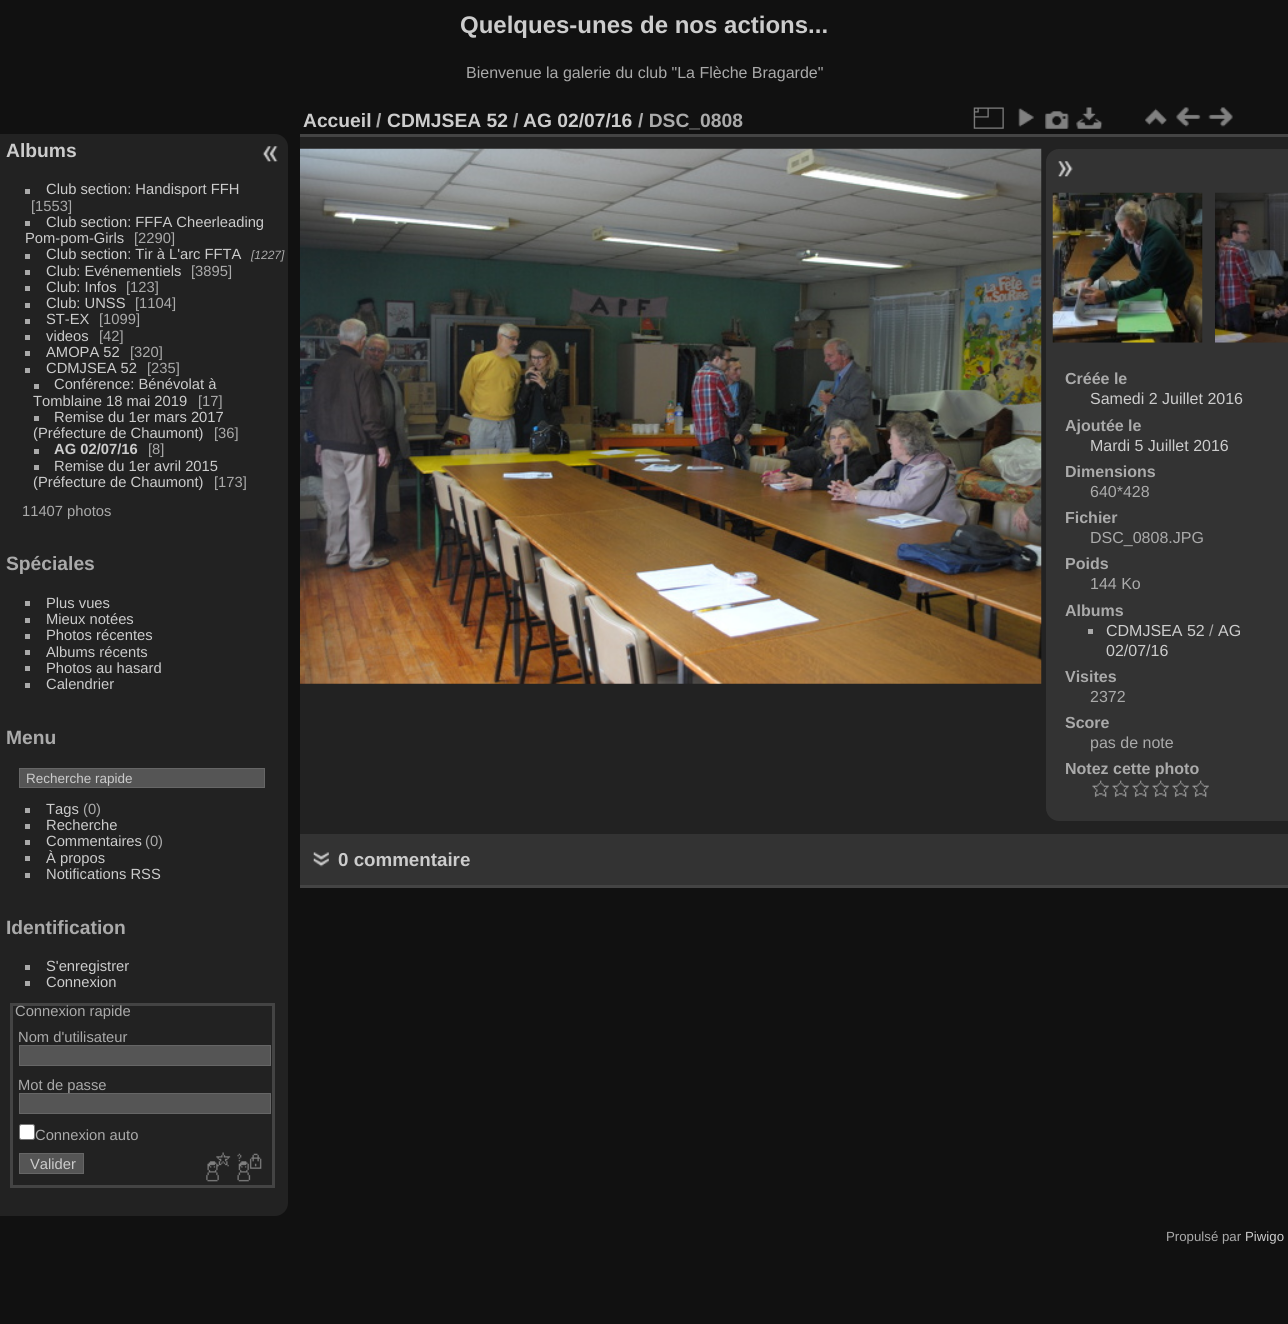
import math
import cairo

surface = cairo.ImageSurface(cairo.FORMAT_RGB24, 1288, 1324)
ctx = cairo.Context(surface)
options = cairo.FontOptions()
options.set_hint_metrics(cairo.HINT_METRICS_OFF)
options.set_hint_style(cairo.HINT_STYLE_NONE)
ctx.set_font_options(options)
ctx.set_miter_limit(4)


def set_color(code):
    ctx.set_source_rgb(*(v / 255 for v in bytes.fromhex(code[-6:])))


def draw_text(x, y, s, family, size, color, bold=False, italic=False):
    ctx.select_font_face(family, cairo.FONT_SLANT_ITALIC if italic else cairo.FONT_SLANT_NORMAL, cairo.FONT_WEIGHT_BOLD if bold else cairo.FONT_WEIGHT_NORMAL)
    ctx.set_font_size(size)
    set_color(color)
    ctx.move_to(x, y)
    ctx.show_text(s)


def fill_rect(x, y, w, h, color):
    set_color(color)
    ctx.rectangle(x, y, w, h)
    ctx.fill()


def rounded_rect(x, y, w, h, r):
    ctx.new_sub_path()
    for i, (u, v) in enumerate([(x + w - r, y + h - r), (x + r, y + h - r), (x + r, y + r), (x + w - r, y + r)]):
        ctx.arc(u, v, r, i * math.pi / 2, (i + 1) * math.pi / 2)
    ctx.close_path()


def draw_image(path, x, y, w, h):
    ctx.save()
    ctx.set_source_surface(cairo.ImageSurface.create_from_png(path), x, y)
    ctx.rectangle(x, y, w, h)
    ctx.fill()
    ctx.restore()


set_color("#111111")
ctx.paint()
draw_text(460, 33, "Quelques-unes de nos actions...", "Liberation Sans", 24, "#cccccc", bold=True)
draw_text(466, 78, "Bienvenue la galerie du club \"La Flèche Bragarde\"", "Liberation Sans", 16, "#aaaaaa")
set_color("#222222")
ctx.new_path()
ctx.move_to(0, 134)
ctx.line_to(275, 134)
ctx.curve_to(282, 134, 288, 140, 288, 147)
ctx.line_to(288, 1203)
ctx.curve_to(288, 1210, 282, 1216, 275, 1216)
ctx.line_to(0, 1216)
ctx.close_path()
ctx.fill()
draw_text(6, 157, "Albums", "Liberation Sans", 19.25, "#cccccc", bold=True)
fill_rect(25, 189, 5, 5, "#aaaaaa")
draw_text(46, 194, "Club section: Handisport FFH", "Liberation Sans", 14.75, "#cccccc")
draw_text(31, 211, "[1553]", "Liberation Sans", 14.75, "#aaaaaa")
fill_rect(25, 221, 5, 5, "#aaaaaa")
draw_text(46, 227, "Club section: FFFA Cheerleading", "Liberation Sans", 14.75, "#cccccc")
draw_text(25, 243, "Pom-pom-Girls", "Liberation Sans", 14.75, "#cccccc")
draw_text(134, 243, "[2290]", "Liberation Sans", 14.75, "#aaaaaa")
fill_rect(25, 254, 5, 5, "#aaaaaa")
draw_text(46, 259, "Club section: Tir à L'arc FFTA", "Liberation Sans", 14.75, "#cccccc")
draw_text(251, 259, "[1227]", "Liberation Sans", 12, "#aaaaaa", italic=True)
fill_rect(25, 270, 5, 5, "#aaaaaa")
draw_text(46, 276, "Club: Evénementiels", "Liberation Sans", 14.75, "#cccccc")
draw_text(191, 276, "[3895]", "Liberation Sans", 14.75, "#aaaaaa")
fill_rect(25, 286, 5, 5, "#aaaaaa")
draw_text(46, 292, "Club: Infos", "Liberation Sans", 14.75, "#cccccc")
draw_text(126, 292, "[123]", "Liberation Sans", 14.75, "#aaaaaa")
fill_rect(25, 303, 5, 5, "#aaaaaa")
draw_text(46, 308, "Club: UNSS", "Liberation Sans", 14.75, "#cccccc")
draw_text(135, 308, "[1104]", "Liberation Sans", 14.75, "#aaaaaa")
fill_rect(25, 319, 5, 5, "#aaaaaa")
draw_text(46, 324, "ST-EX", "Liberation Sans", 14.75, "#cccccc")
draw_text(99, 324, "[1099]", "Liberation Sans", 14.75, "#aaaaaa")
fill_rect(25, 335, 5, 5, "#aaaaaa")
draw_text(46, 341, "videos", "Liberation Sans", 14.75, "#cccccc")
draw_text(99, 341, "[42]", "Liberation Sans", 14.75, "#aaaaaa")
fill_rect(25, 351, 5, 5, "#aaaaaa")
draw_text(46, 357, "AMOPA 52", "Liberation Sans", 14.75, "#cccccc")
draw_text(130, 357, "[320]", "Liberation Sans", 14.75, "#aaaaaa")
fill_rect(25, 368, 5, 5, "#aaaaaa")
draw_text(46, 373, "CDMJSEA 52", "Liberation Sans", 14.75, "#cccccc")
draw_text(147, 373, "[235]", "Liberation Sans", 14.75, "#aaaaaa")
fill_rect(34, 384, 5, 5, "#aaaaaa")
draw_text(54, 389, "Conférence: Bénévolat à", "Liberation Sans", 14.75, "#cccccc")
draw_text(33, 406, "Tomblaine 18 mai 2019", "Liberation Sans", 14.75, "#cccccc")
draw_text(198, 406, "[17]", "Liberation Sans", 14.75, "#aaaaaa")
fill_rect(34, 416, 5, 5, "#aaaaaa")
draw_text(54, 422, "Remise du 1er mars 2017", "Liberation Sans", 14.75, "#cccccc")
draw_text(33, 438, "(Préfecture de Chaumont)", "Liberation Sans", 14.75, "#cccccc")
draw_text(214, 438, "[36]", "Liberation Sans", 14.75, "#aaaaaa")
fill_rect(34, 449, 5, 5, "#aaaaaa")
draw_text(54, 454, "AG 02/07/16", "Liberation Sans", 14.75, "#cccccc", bold=True)
draw_text(148, 454, "[8]", "Liberation Sans", 14.75, "#aaaaaa")
fill_rect(34, 465, 5, 5, "#aaaaaa")
draw_text(54, 471, "Remise du 1er avril 2015", "Liberation Sans", 14.75, "#cccccc")
draw_text(33, 487, "(Préfecture de Chaumont)", "Liberation Sans", 14.75, "#cccccc")
draw_text(214, 487, "[173]", "Liberation Sans", 14.75, "#aaaaaa")
draw_text(22, 516, "11407 photos", "Liberation Sans", 14.75, "#aaaaaa")
draw_text(6, 570, "Spéciales", "Liberation Sans", 19.25, "#aaaaaa", bold=True)
fill_rect(25, 601, 5, 5, "#aaaaaa")
draw_text(46, 608, "Plus vues", "Liberation Sans", 14.75, "#cccccc")
fill_rect(25, 618, 5, 5, "#aaaaaa")
draw_text(46, 624, "Mieux notées", "Liberation Sans", 14.75, "#cccccc")
fill_rect(25, 634, 5, 5, "#aaaaaa")
draw_text(46, 640, "Photos récentes", "Liberation Sans", 14.75, "#cccccc")
fill_rect(25, 650, 5, 5, "#aaaaaa")
draw_text(46, 657, "Albums récents", "Liberation Sans", 14.75, "#cccccc")
fill_rect(25, 666, 5, 5, "#aaaaaa")
draw_text(46, 673, "Photos au hasard", "Liberation Sans", 14.75, "#cccccc")
fill_rect(25, 683, 5, 5, "#aaaaaa")
draw_text(46, 689, "Calendrier", "Liberation Sans", 14.75, "#cccccc")
draw_text(6, 744, "Menu", "Liberation Sans", 19.25, "#aaaaaa", bold=True)
set_color("#555555")
ctx.rectangle(19.5, 768.5, 245, 19)
ctx.fill_preserve()
set_color("#666666")
ctx.set_line_width(1)
ctx.stroke()
draw_text(26, 783, "Recherche rapide", "Liberation Sans", 13.5, "#cccccc")
fill_rect(25, 808, 5, 5, "#aaaaaa")
draw_text(46, 814, "Tags", "Liberation Sans", 14.75, "#cccccc")
draw_text(83, 814, "(0)", "Liberation Sans", 14.75, "#aaaaaa")
fill_rect(25, 824, 5, 5, "#aaaaaa")
draw_text(46, 830, "Recherche", "Liberation Sans", 14.75, "#cccccc")
fill_rect(25, 840, 5, 5, "#aaaaaa")
draw_text(46, 846, "Commentaires", "Liberation Sans", 14.75, "#cccccc")
draw_text(145, 846, "(0)", "Liberation Sans", 14.75, "#aaaaaa")
fill_rect(25, 856, 5, 5, "#aaaaaa")
draw_text(46, 863, "À propos", "Liberation Sans", 14.75, "#cccccc")
fill_rect(25, 873, 5, 5, "#aaaaaa")
draw_text(46, 879, "Notifications RSS", "Liberation Sans", 14.75, "#cccccc")
draw_text(6, 934, "Identification", "Liberation Sans", 19.25, "#aaaaaa", bold=True)
fill_rect(25, 965, 5, 5, "#aaaaaa")
draw_text(46, 971, "S'enregistrer", "Liberation Sans", 14.75, "#cccccc")
fill_rect(25, 981, 5, 5, "#aaaaaa")
draw_text(46, 987, "Connexion", "Liberation Sans", 14.75, "#cccccc")
ctx.rectangle(11.5, 1004.5, 262, 182)
set_color("#444444")
ctx.set_line_width(3)
ctx.stroke()
draw_text(15, 1016, "Connexion rapide", "Liberation Sans", 14.75, "#aaaaaa")
draw_text(18, 1042, "Nom d'utilisateur", "Liberation Sans", 14.75, "#aaaaaa")
set_color("#555555")
ctx.rectangle(19.5, 1045.5, 251, 20)
ctx.fill_preserve()
set_color("#666666")
ctx.set_line_width(1)
ctx.stroke()
draw_text(18, 1090, "Mot de passe", "Liberation Sans", 14.75, "#aaaaaa")
set_color("#555555")
ctx.rectangle(19.5, 1093.5, 251, 20)
ctx.fill_preserve()
set_color("#666666")
ctx.stroke()
set_color("#ffffff")
rounded_rect(19.5, 1124.5, 15, 15, 2)
ctx.fill_preserve()
set_color("#767676")
ctx.stroke()
draw_text(35, 1140, "Connexion auto", "Liberation Sans", 14.75, "#aaaaaa")
set_color("#555555")
ctx.rectangle(19.5, 1153.5, 64, 20)
ctx.fill_preserve()
set_color("#666666")
ctx.stroke()
draw_text(30, 1169, "Valider", "Liberation Sans", 14.75, "#cccccc")
draw_image("assets/img1.png", 206, 1152, 25, 30)
draw_image("assets/img2.png", 237, 1153, 25, 29)
fill_rect(300, 137, 988, 697, "#222222")
fill_rect(300, 885, 988, 3, "#444444")
fill_rect(300, 134, 988, 3, "#444444")
draw_text(303, 127, "Accueil", "Liberation Sans", 19.25, "#cccccc", bold=True)
draw_text(376, 127, "/", "Liberation Sans", 19.25, "#aaaaaa", bold=True)
draw_text(387, 127, "CDMJSEA 52", "Liberation Sans", 19.25, "#cccccc", bold=True)
draw_text(513, 127, "/", "Liberation Sans", 19.25, "#aaaaaa", bold=True)
draw_text(523, 127, "AG 02/07/16", "Liberation Sans", 19.25, "#cccccc", bold=True)
draw_text(638, 127, "/ DSC_0808", "Liberation Sans", 19.25, "#aaaaaa", bold=True)
draw_image("assets/img3.png", 973, 107, 31, 22)
draw_image("assets/img4.png", 1018, 108, 16, 19)
draw_image("assets/img5.png", 1045, 111, 24, 18)
draw_image("assets/img6.png", 1076, 107, 27, 22)
draw_image("assets/img7.png", 1145, 108, 22, 18)
draw_image("assets/img8.png", 1176, 107, 25, 20)
draw_image("assets/img9.png", 1208, 107, 25, 20)
draw_image("assets/img10.png", 300, 148, 742, 536)
set_color("#333333")
ctx.new_path()
ctx.move_to(1059, 149)
ctx.line_to(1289, 149)
ctx.line_to(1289, 821)
ctx.line_to(1059, 821)
ctx.curve_to(1052, 821, 1046, 815, 1046, 808)
ctx.line_to(1046, 162)
ctx.curve_to(1046, 155, 1052, 149, 1059, 149)
ctx.close_path()
ctx.fill()
draw_image("assets/img11.png", 1058, 161, 15, 16)
draw_image("assets/img12.png", 1052, 192, 151, 151)
draw_image("assets/img13.png", 1215, 192, 73, 151)
draw_text(1065, 384, "Créée le", "Liberation Sans", 16, "#aaaaaa", bold=True)
draw_text(1090, 404, "Samedi 2 Juillet 2016", "Liberation Sans", 16, "#cccccc")
draw_text(1065, 431, "Ajoutée le", "Liberation Sans", 16, "#aaaaaa", bold=True)
draw_text(1090, 451, "Mardi 5 Juillet 2016", "Liberation Sans", 16, "#cccccc")
draw_text(1065, 477, "Dimensions", "Liberation Sans", 16, "#aaaaaa", bold=True)
draw_text(1090, 497, "640*428", "Liberation Sans", 16, "#aaaaaa")
draw_text(1065, 523, "Fichier", "Liberation Sans", 16, "#aaaaaa", bold=True)
draw_text(1090, 543, "DSC_0808.JPG", "Liberation Sans", 16, "#aaaaaa")
draw_text(1065, 569, "Poids", "Liberation Sans", 16, "#aaaaaa", bold=True)
draw_text(1090, 589, "144 Ko", "Liberation Sans", 16, "#aaaaaa")
draw_text(1065, 616, "Albums", "Liberation Sans", 16, "#aaaaaa", bold=True)
fill_rect(1088, 629, 5, 5, "#aaaaaa")
draw_text(1106, 636, "CDMJSEA 52", "Liberation Sans", 16, "#cccccc")
draw_text(1209, 636, "/", "Liberation Sans", 16, "#aaaaaa")
draw_text(1218, 636, "AG", "Liberation Sans", 16, "#cccccc")
draw_text(1106, 656, "02/07/16", "Liberation Sans", 16, "#cccccc")
draw_text(1065, 682, "Visites", "Liberation Sans", 16, "#aaaaaa", bold=True)
draw_text(1090, 702, "2372", "Liberation Sans", 16, "#aaaaaa")
draw_text(1065, 728, "Score", "Liberation Sans", 16, "#aaaaaa", bold=True)
draw_text(1090, 748, "pas de note", "Liberation Sans", 16, "#aaaaaa")
draw_text(1065, 774, "Notez cette photo", "Liberation Sans", 16, "#aaaaaa", bold=True)
draw_image("assets/img14.png", 1092, 780, 17, 18)
draw_image("assets/img15.png", 1112, 780, 17, 18)
draw_image("assets/img15.png", 1132, 780, 17, 18)
draw_image("assets/img15.png", 1152, 780, 17, 18)
draw_image("assets/img15.png", 1172, 780, 17, 18)
draw_image("assets/img14.png", 1192, 780, 17, 18)
fill_rect(300, 834, 988, 51, "#333333")
draw_image("assets/img16.png", 313, 852, 16, 15)
draw_text(338, 866, "0 commentaire", "Liberation Sans", 18.75, "#cccccc", bold=True)
draw_image("assets/img17.png", 262, 146, 16, 16)
draw_text(1166, 1241, "Propulsé par", "Liberation Sans", 13.25, "#aaaaaa")
draw_text(1245, 1241, "Piwigo", "Liberation Sans", 13.25, "#cccccc")
surface.write_to_png("output.png")
